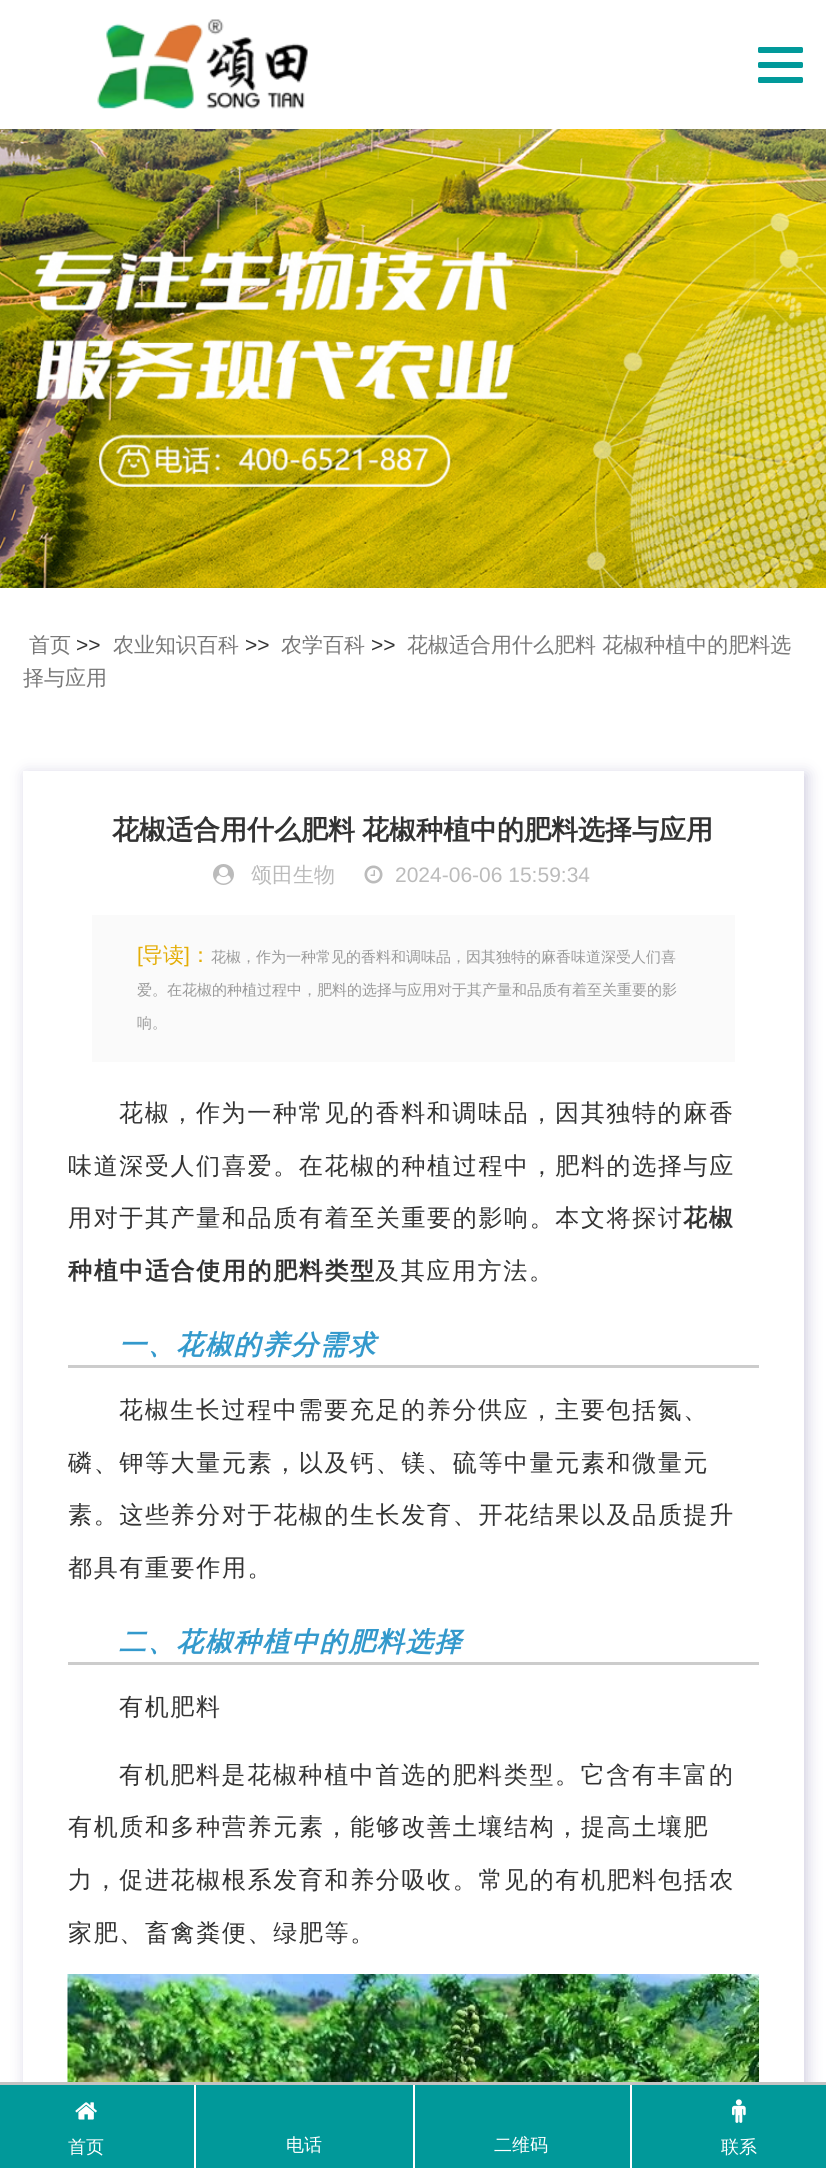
import math
import cairo

surface = cairo.ImageSurface(cairo.FORMAT_RGB24, 826, 2168)
ctx = cairo.Context(surface)
options = cairo.FontOptions()
options.set_hint_metrics(cairo.HINT_METRICS_OFF)
options.set_hint_style(cairo.HINT_STYLE_NONE)
ctx.set_font_options(options)
ctx.set_miter_limit(4)


def set_color(code):
    ctx.set_source_rgb(*(v / 255 for v in bytes.fromhex(code[-6:])))


def draw_text(x, y, s, family, size, color, bold=False, italic=False):
    ctx.select_font_face(family, cairo.FONT_SLANT_ITALIC if italic else cairo.FONT_SLANT_NORMAL, cairo.FONT_WEIGHT_BOLD if bold else cairo.FONT_WEIGHT_NORMAL)
    ctx.set_font_size(size)
    set_color(color)
    ctx.move_to(x, y)
    ctx.show_text(s)


def draw_spaced(x, y, s, letter, word):
    ctx.move_to(x, y)
    for ch in s:
        ctx.show_text(ch)
        ctx.rel_move_to(letter + word * (ch == ' '), 0)


def fill_rect(x, y, w, h, color):
    set_color(color)
    ctx.rectangle(x, y, w, h)
    ctx.fill()


def rounded_rect(x, y, w, h, r):
    ctx.new_sub_path()
    for i, (u, v) in enumerate([(x + w - r, y + h - r), (x + r, y + h - r), (x + r, y + r), (x + w - r, y + r)]):
        ctx.arc(u, v, r, i * math.pi / 2, (i + 1) * math.pi / 2)
    ctx.close_path()


def draw_shadow(x, y, w, h, r, blur, alpha):
    ctx.push_group_with_content(cairo.CONTENT_ALPHA)
    ctx.set_operator(cairo.OPERATOR_SOURCE)
    for i in range(15, -16, -2):
        e = blur * i / 6
        if min(w, h) + 2 * e > 0:
            ctx.set_source_rgba(0, 0, 0, alpha * math.erfc((i - 1) / 8.5) / 2)
            rounded_rect(x - e, y - e, w + 2 * e, h + 2 * e, max(0, min(r + e + blur * .6, min(w, h) / 2 + e)))
            ctx.fill()
    ctx.mask(ctx.pop_group())


def draw_image(path, x, y, w, h):
    ctx.save()
    ctx.set_source_surface(cairo.ImageSurface.create_from_png(path), x, y)
    ctx.rectangle(x, y, w, h)
    ctx.fill()
    ctx.restore()


set_color("#ffffff")
ctx.paint()
draw_image("assets/img1.png", 97, 19, 211, 90)
set_color("#01999a")
rounded_rect(758, 47, 45, 6, 1.5)
ctx.fill()
rounded_rect(758, 62, 45, 6, 1.5)
ctx.fill()
rounded_rect(758, 77, 45, 6, 1.5)
ctx.fill()
draw_image("assets/img2.png", 0, 129, 826, 459)
draw_text(29, 652, "首页", "WenQuanYi Zen Hei Medium", 21, "#777777")
draw_text(76, 652, ">>", "Liberation Sans", 21, "#333333")
draw_text(113, 652, "农业知识百科", "WenQuanYi Zen Hei Medium", 21, "#777777")
draw_text(245, 652, ">>", "Liberation Sans", 21, "#333333")
draw_text(281, 652, "农学百科", "WenQuanYi Zen Hei Medium", 21, "#777777")
draw_text(371, 652, ">>", "Liberation Sans", 21, "#333333")
draw_text(407, 652, "花椒适合用什么肥料 花椒种植中的肥料选", "WenQuanYi Zen Hei Medium", 21, "#777777")
draw_text(23, 685, "择与应用", "WenQuanYi Zen Hei Medium", 21, "#777777")
ctx.save()
ctx.set_fill_rule(cairo.FILL_RULE_EVEN_ODD)
ctx.new_path()
ctx.move_to(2, 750)
ctx.line_to(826, 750)
ctx.line_to(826, 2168)
ctx.line_to(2, 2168)
ctx.close_path()
ctx.move_to(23, 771)
ctx.line_to(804, 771)
ctx.line_to(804, 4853)
ctx.line_to(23, 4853)
ctx.close_path()
ctx.clip()
set_color("#cfcde0")
draw_shadow(26, 774, 781, 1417, 0, 7.5, 1)
ctx.restore()
ctx.select_font_face("WenQuanYi Zen Hei", cairo.FONT_SLANT_NORMAL, cairo.FONT_WEIGHT_BOLD)
ctx.set_font_size(27)
set_color("#333333")
draw_spaced(112, 839, "花椒适合用什么肥料 花椒种植中的肥料选择与应用", 0, -1)
draw_image("assets/img3.png", 213, 864, 21, 21)
draw_text(251, 882, "颂田生物", "WenQuanYi Zen Hei Medium", 21, "#bbbbbb")
draw_image("assets/img4.png", 364, 865, 19, 19)
draw_text(395, 882, "2024-06-06 15:59:34", "Liberation Sans", 21, "#bbbbbb")
fill_rect(92, 915, 643, 147, "#fafafa")
draw_text(137, 962, "[", "Liberation Sans", 21, "#e4ad06")
draw_text(142, 962, "导读", "WenQuanYi Zen Hei Medium", 21, "#e4ad06")
draw_text(184, 962, "]", "Liberation Sans", 21, "#e4ad06")
draw_text(190, 962, "：", "WenQuanYi Zen Hei Medium", 21, "#e4ad06")
draw_text(211, 962, "花椒，作为一种常见的香料和调味品，因其独特的麻香味道深受人们喜", "WenQuanYi Zen Hei Medium", 15, "#999999")
draw_text(137, 995, "爱。在花椒的种植过程中，肥料的选择与应用对于其产量和品质有着至关重要的影", "WenQuanYi Zen Hei Medium", 15, "#999999")
draw_text(137, 1028, "响。", "WenQuanYi Zen Hei Medium", 15, "#999999")
ctx.set_font_size(24)
set_color("#333333")
draw_spaced(119, 1121, "花椒，作为一种常见的香料和调味品，因其独特的麻香", 1.65, 0)
draw_spaced(68, 1174, "味道深受人们喜爱。在花椒的种植过程中，肥料的选择与应", 1.65, 0)
draw_spaced(68, 1226, "用对于其产量和品质有着至关重要的影响。本文将探讨", 1.65, 0)
ctx.select_font_face("WenQuanYi Zen Hei", cairo.FONT_SLANT_NORMAL, cairo.FONT_WEIGHT_BOLD)
draw_spaced(683, 1226, "花椒", 1.65, 0)
draw_spaced(68, 1279, "种植中适合使用的肥料类型", 1.65, 0)
ctx.select_font_face("WenQuanYi Zen Hei Medium")
draw_spaced(375, 1279, "及其应用方法。", 1.65, 0)
fill_rect(68, 1365, 691, 3, "#cccccc")
ctx.select_font_face("WenQuanYi Zen Hei", cairo.FONT_SLANT_ITALIC, cairo.FONT_WEIGHT_BOLD)
ctx.set_font_size(27)
set_color("#3399cc")
draw_spaced(119, 1354, "一、花椒的养分需求", 1.65, 0)
ctx.select_font_face("WenQuanYi Zen Hei Medium")
ctx.set_font_size(24)
set_color("#333333")
draw_spaced(119, 1418, "花椒生长过程中需要充足的养分供应，主要包括氮、", 1.65, 0)
draw_spaced(68, 1471, "磷、钾等大量元素，以及钙、镁、硫等中量元素和微量元", 1.65, 0)
draw_spaced(68, 1523, "素。这些养分对于花椒的生长发育、开花结果以及品质提升", 1.65, 0)
draw_spaced(68, 1576, "都具有重要作用。", 1.65, 0)
fill_rect(68, 1662, 691, 3, "#cccccc")
ctx.select_font_face("WenQuanYi Zen Hei", cairo.FONT_SLANT_ITALIC, cairo.FONT_WEIGHT_BOLD)
ctx.set_font_size(27)
set_color("#3399cc")
draw_spaced(119, 1651, "二、花椒种植中的肥料选择", 1.65, 0)
ctx.select_font_face("WenQuanYi Zen Hei Medium")
ctx.set_font_size(24)
set_color("#333333")
draw_spaced(119, 1715, "有机肥料", 1.65, 0)
draw_spaced(119, 1783, "有机肥料是花椒种植中首选的肥料类型。它含有丰富的", 1.65, 0)
draw_spaced(68, 1835, "有机质和多种营养元素，能够改善土壤结构，提高土壤肥", 1.65, 0)
draw_spaced(68, 1888, "力，促进花椒根系发育和养分吸收。常见的有机肥料包括农", 1.65, 0)
draw_spaced(68, 1941, "家肥、畜禽粪便、绿肥等。", 1.65, 0)
draw_image("assets/img5.png", 67, 1974, 692, 108)
fill_rect(0, 2085, 826, 83, "#01999a")
fill_rect(0, 2082, 826, 3, "#c3c3c3")
fill_rect(194, 2085, 2, 83, "#ffffff")
draw_image("assets/img6.png", 75, 2102, 22, 18)
draw_text(68, 2153, "首页", "WenQuanYi Zen Hei Medium", 18, "#ffffff")
fill_rect(413, 2085, 2, 83, "#ffffff")
draw_text(286, 2151, "电话", "WenQuanYi Zen Hei Medium", 18, "#ffffff")
fill_rect(630, 2085, 2, 83, "#ffffff")
draw_text(494, 2151, "二维码", "WenQuanYi Zen Hei Medium", 18, "#ffffff")
draw_image("assets/img7.png", 732, 2099, 14, 24)
draw_text(721, 2153, "联系", "WenQuanYi Zen Hei Medium", 18, "#ffffff")
surface.write_to_png("output.png")
